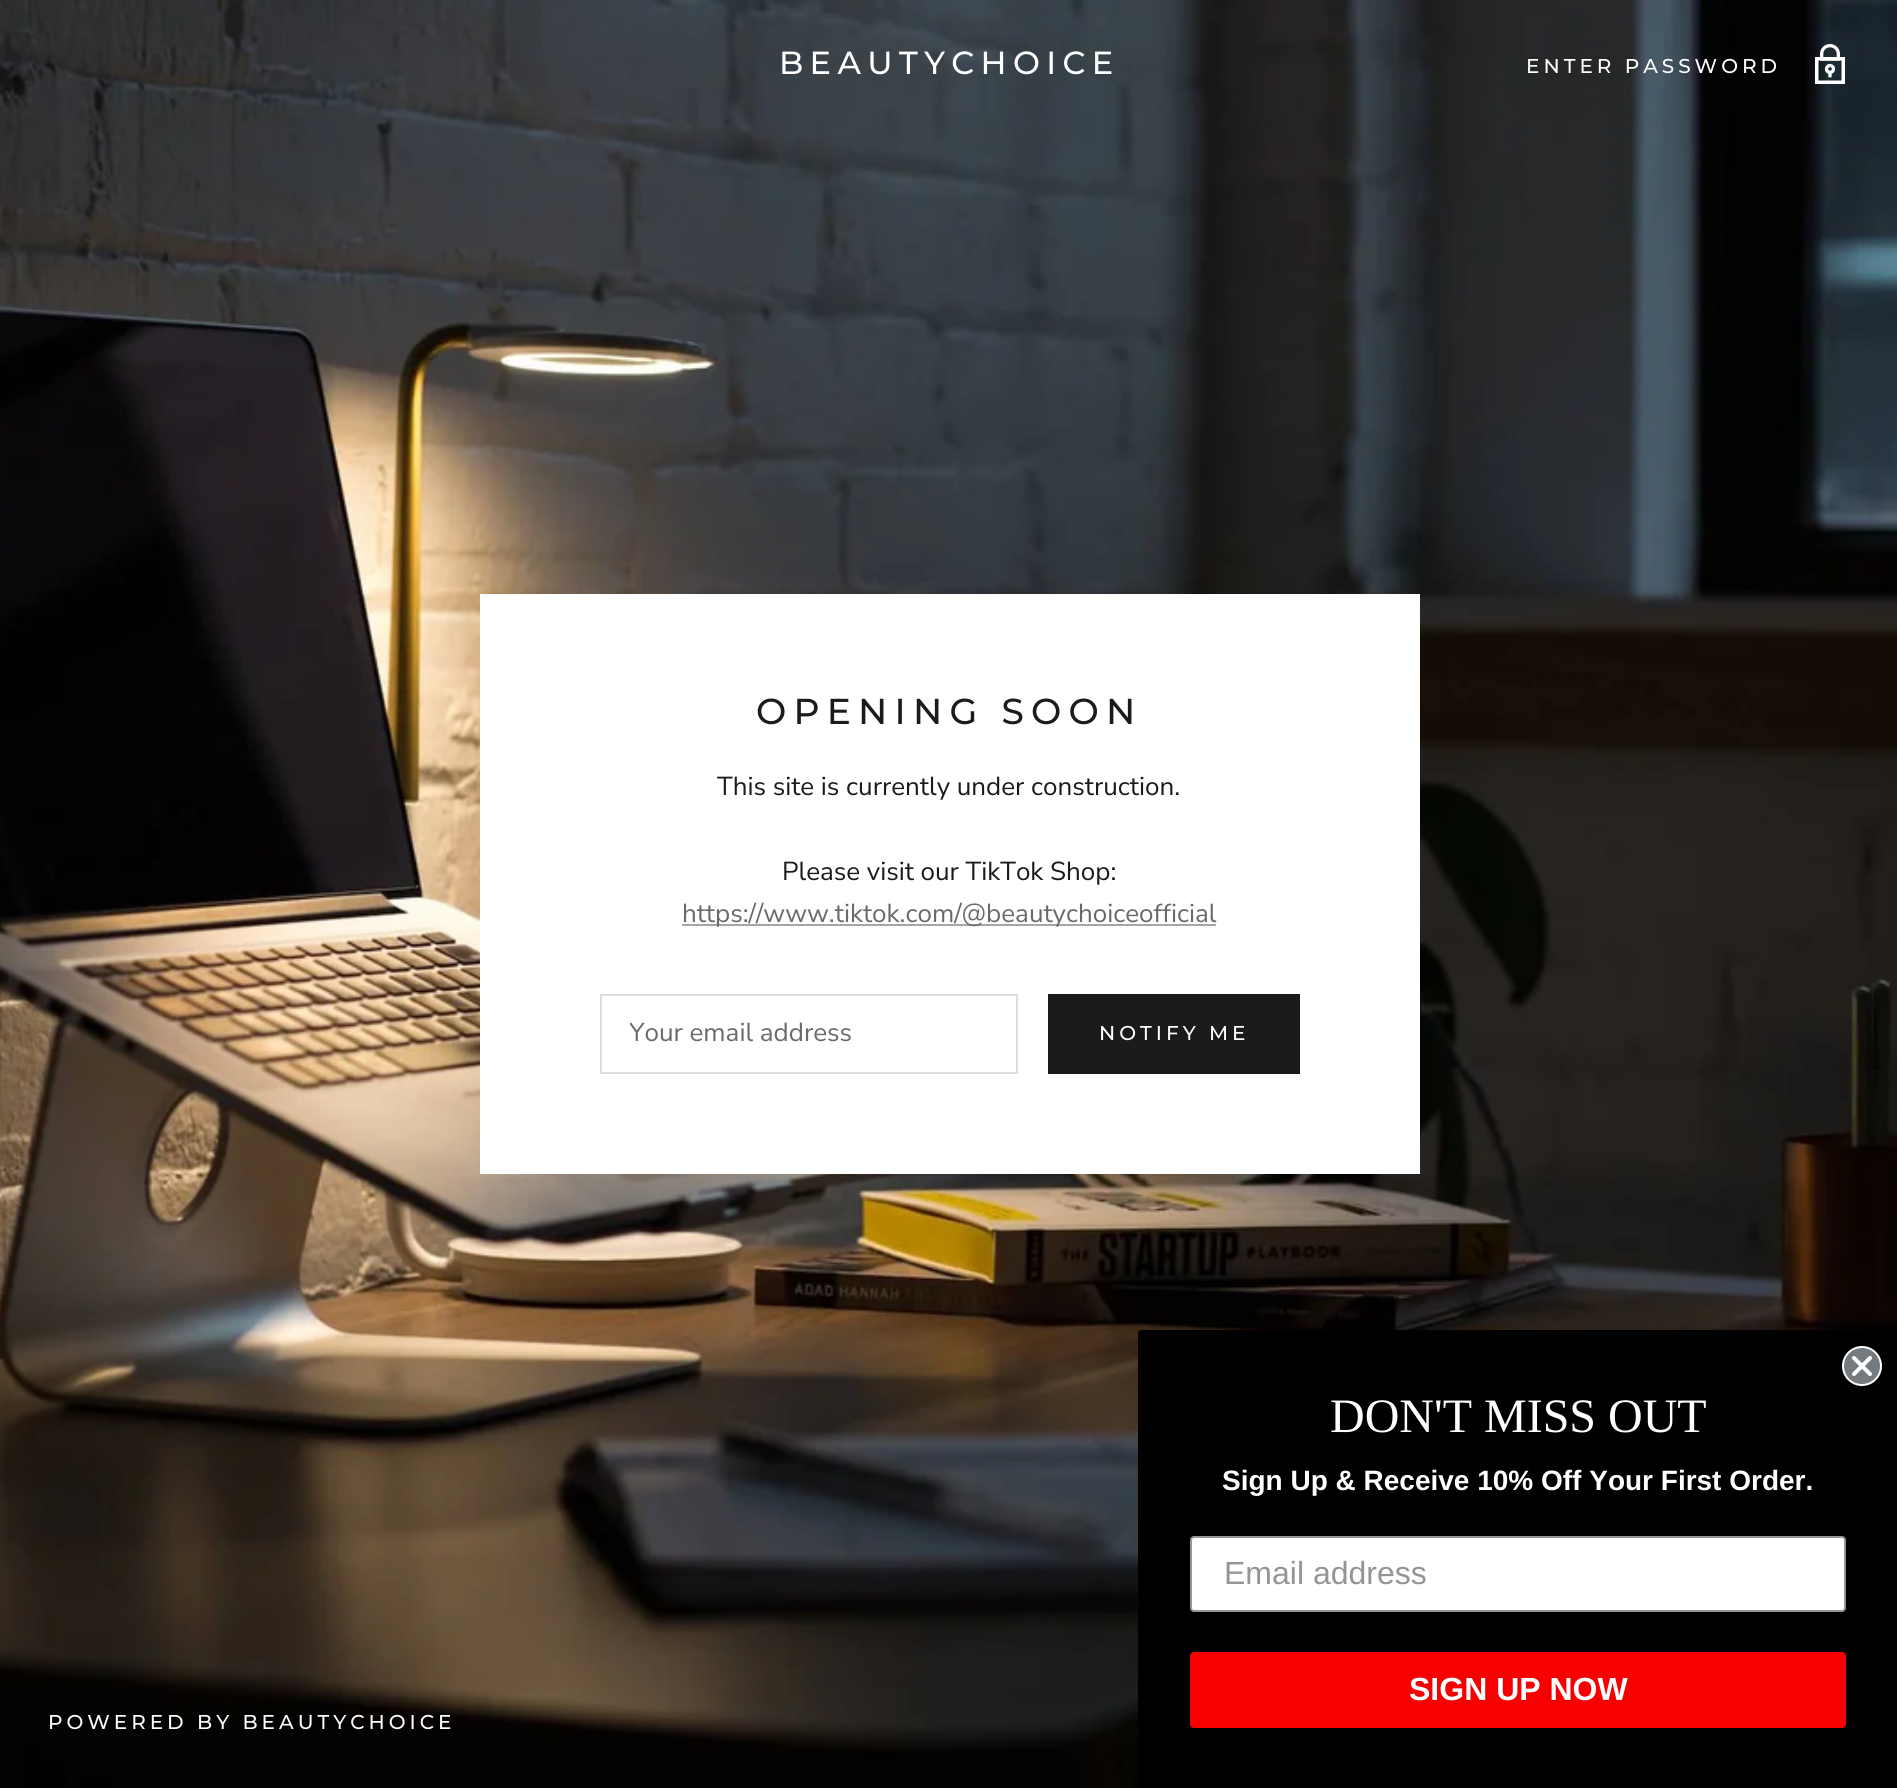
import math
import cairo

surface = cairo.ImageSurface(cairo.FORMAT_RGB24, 1897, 1788)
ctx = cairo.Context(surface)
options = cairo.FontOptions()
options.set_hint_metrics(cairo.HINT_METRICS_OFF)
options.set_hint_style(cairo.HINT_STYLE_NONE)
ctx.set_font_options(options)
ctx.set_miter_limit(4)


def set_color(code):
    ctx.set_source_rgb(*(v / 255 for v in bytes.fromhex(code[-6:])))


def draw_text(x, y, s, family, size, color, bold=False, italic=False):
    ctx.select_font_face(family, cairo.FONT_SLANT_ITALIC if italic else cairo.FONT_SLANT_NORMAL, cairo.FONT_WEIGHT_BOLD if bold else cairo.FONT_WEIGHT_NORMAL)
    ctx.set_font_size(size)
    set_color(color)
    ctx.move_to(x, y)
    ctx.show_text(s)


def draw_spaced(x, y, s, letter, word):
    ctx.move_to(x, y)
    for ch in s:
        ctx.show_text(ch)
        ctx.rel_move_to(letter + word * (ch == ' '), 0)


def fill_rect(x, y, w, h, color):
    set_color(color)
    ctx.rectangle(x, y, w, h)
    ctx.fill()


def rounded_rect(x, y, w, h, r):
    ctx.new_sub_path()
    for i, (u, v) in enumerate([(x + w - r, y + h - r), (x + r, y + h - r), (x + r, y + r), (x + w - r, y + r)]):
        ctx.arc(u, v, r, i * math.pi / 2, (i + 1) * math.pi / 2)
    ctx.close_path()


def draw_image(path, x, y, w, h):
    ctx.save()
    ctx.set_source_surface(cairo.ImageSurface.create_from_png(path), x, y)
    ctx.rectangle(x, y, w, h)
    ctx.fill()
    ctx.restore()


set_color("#ffffff")
ctx.paint()
draw_image("assets/img1.png", 0, 0, 1897, 1788)
ctx.select_font_face("Montserrat Medium")
ctx.set_font_size(32)
set_color("#ffffff")
draw_spaced(779, 74, "BEAUTYCHOICE", 6.4, 0)
ctx.set_font_size(20)
draw_spaced(1526, 73, "ENTER PASSWORD", 4, 0)
draw_image("assets/img2.png", 1815, 44, 30, 40)
fill_rect(480, 594, 940, 580, "#ffffff")
ctx.set_font_size(36)
set_color("#1c1b1b")
draw_spaced(756, 724, "OPENING SOON", 7.25, 0)
draw_text(717, 795, "This site is currently under construction.", "Nunito Sans", 26, "#1c1b1b")
draw_text(782, 880, "Please visit our TikTok Shop:", "Nunito Sans", 26, "#1c1b1b")
fill_rect(682, 924, 534, 2, "#a6a6a6")
draw_text(682, 922, "https://www.tiktok.com/@beautychoiceofficial", "Nunito Sans", 26, "#6a6a6a")
ctx.rectangle(601, 995, 416, 78)
set_color("#dddddd")
ctx.stroke()
ctx.save()
ctx.rectangle(630, 1016, 358, 36)
ctx.clip()
draw_text(629, 1041, "Your email address", "Nunito Sans", 26, "#6a6a6a")
ctx.restore()
ctx.rectangle(1049, 995, 250, 78)
set_color("#1c1b1b")
ctx.stroke()
fill_rect(1050, 996, 248, 76, "#1c1b1b")
ctx.select_font_face("Montserrat Medium")
ctx.set_font_size(20)
set_color("#ffffff")
draw_spaced(1099, 1040, "NOTIFY ME", 4, 0)
draw_spaced(48, 1729, "POWERED BY BEAUTYCHOICE", 4, 0)
set_color("#000000")
rounded_rect(1138, 1330, 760, 458, 4)
ctx.fill()
set_color("#757a7f")
ctx.arc(1862, 1366, 19, 0, 2 * math.pi)
ctx.fill_preserve()
set_color("#ffffff")
ctx.stroke()
ctx.new_path()
ctx.move_to(1854, 1358)
ctx.line_to(1870, 1374)
ctx.move_to(1854, 1374)
ctx.line_to(1870, 1358)
ctx.close_path()
ctx.set_line_width(4)
ctx.set_line_cap(cairo.LINE_CAP_ROUND)
ctx.set_line_join(cairo.LINE_JOIN_ROUND)
ctx.stroke()
draw_text(1330, 1432, "DON'T MISS OUT", "Liberation Serif", 48, "#ffffff")
draw_text(1222, 1490, "Sign Up & Receive 10% Off Your First Order.", "Liberation Sans", 28, "#ffffff", bold=True)
rounded_rect(1191, 1537, 654, 74, 3)
ctx.fill_preserve()
set_color("#949596")
ctx.set_line_width(2)
ctx.set_line_cap(cairo.LINE_CAP_BUTT)
ctx.set_line_join(cairo.LINE_JOIN_MITER)
ctx.stroke()
draw_text(1224, 1584, "Email address", "Liberation Sans", 32, "#949596")
set_color("#f70000")
rounded_rect(1190, 1652, 656, 76, 4)
ctx.fill()
draw_text(1409, 1700, "SIGN UP NOW", "Liberation Sans", 32, "#ffffff", bold=True)
surface.write_to_png("output.png")
